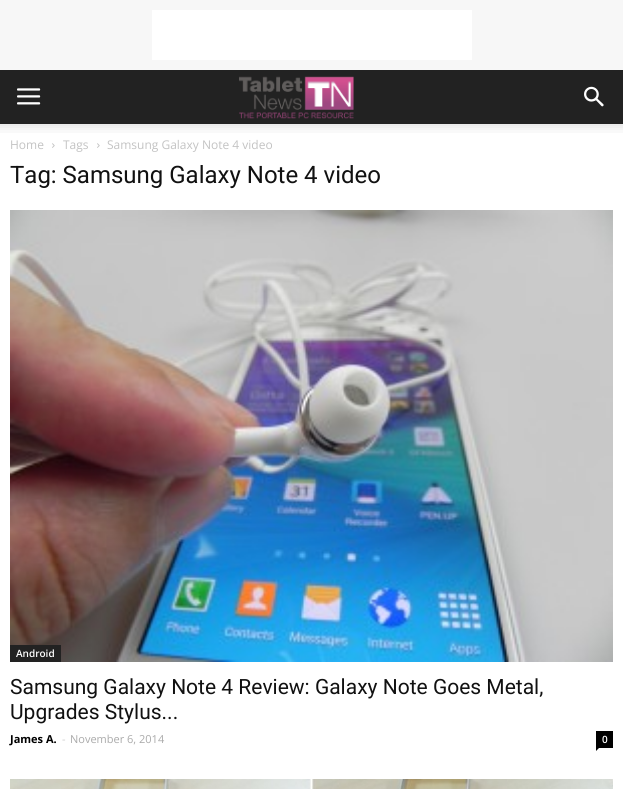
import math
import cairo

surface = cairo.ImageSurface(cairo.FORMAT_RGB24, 623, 789)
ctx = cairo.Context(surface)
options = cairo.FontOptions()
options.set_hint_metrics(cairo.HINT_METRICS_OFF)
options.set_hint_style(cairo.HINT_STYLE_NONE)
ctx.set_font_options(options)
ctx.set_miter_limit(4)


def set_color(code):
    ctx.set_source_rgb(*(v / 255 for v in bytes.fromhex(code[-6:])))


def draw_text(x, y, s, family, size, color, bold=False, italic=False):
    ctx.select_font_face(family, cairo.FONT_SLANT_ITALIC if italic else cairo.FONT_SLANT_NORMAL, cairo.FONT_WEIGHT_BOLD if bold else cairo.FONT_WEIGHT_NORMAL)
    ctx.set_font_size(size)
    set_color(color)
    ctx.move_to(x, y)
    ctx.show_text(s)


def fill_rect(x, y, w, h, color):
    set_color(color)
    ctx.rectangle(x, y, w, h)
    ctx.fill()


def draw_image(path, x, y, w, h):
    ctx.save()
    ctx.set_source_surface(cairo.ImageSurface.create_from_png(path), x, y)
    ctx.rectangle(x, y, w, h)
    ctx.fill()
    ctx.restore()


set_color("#ffffff")
ctx.paint()
fill_rect(0, 0, 623, 70, "#f7f7f7")
fill_rect(152, 10, 320, 50, "#ffffff")
fill_rect(0, 70, 623, 54, "#222222")
draw_image("assets/img1.png", 17, 88, 24, 17)
draw_image("assets/img2.png", 239, 76, 115, 43)
draw_image("assets/img3.png", 584, 86, 20, 21)
draw_image("assets/img4.png", 0, 124, 623, 9)
draw_text(10, 149, "Home", "Open Sans", 12, "#c3c3c3")
draw_image("assets/img5.png", 52, 143, 3, 5)
draw_text(63, 149, "Tags", "Open Sans", 12, "#c3c3c3")
draw_image("assets/img5.png", 97, 143, 3, 5)
draw_text(107, 149, "Samsung Galaxy Note 4 video", "Open Sans", 12, "#c3c3c3")
draw_text(10, 183, "Tag: Samsung Galaxy Note 4 video", "Roboto", 24, "#111111")
draw_image("assets/img6.png", 10, 210, 603, 452)
fill_rect(10, 645, 51, 17, "#222222")
draw_text(16, 657, "Android", "Open Sans SemiBold", 10, "#ffffff")
draw_text(10, 694, "Samsung Galaxy Note 4 Review: Galaxy Note Goes Metal,", "Roboto", 21, "#111111")
draw_text(10, 719, "Upgrades Stylus...", "Roboto", 21, "#111111")
draw_text(10, 743, "James A.", "Open Sans", 11, "#000000", bold=True)
draw_text(62, 743, "-", "Open Sans", 11, "#cccccc")
draw_text(70, 743, "November 6, 2014", "Open Sans", 11, "#aaaaaa")
fill_rect(596, 731, 17, 17, "#000000")
draw_text(602, 743, "0", "Open Sans SemiBold", 10, "#ffffff")
set_color("#000000")
ctx.new_path()
ctx.move_to(596, 748)
ctx.line_to(599, 748)
ctx.line_to(596, 751)
ctx.close_path()
ctx.fill()
draw_image("assets/img7.png", 10, 779, 603, 10)
surface.write_to_png("output.png")
